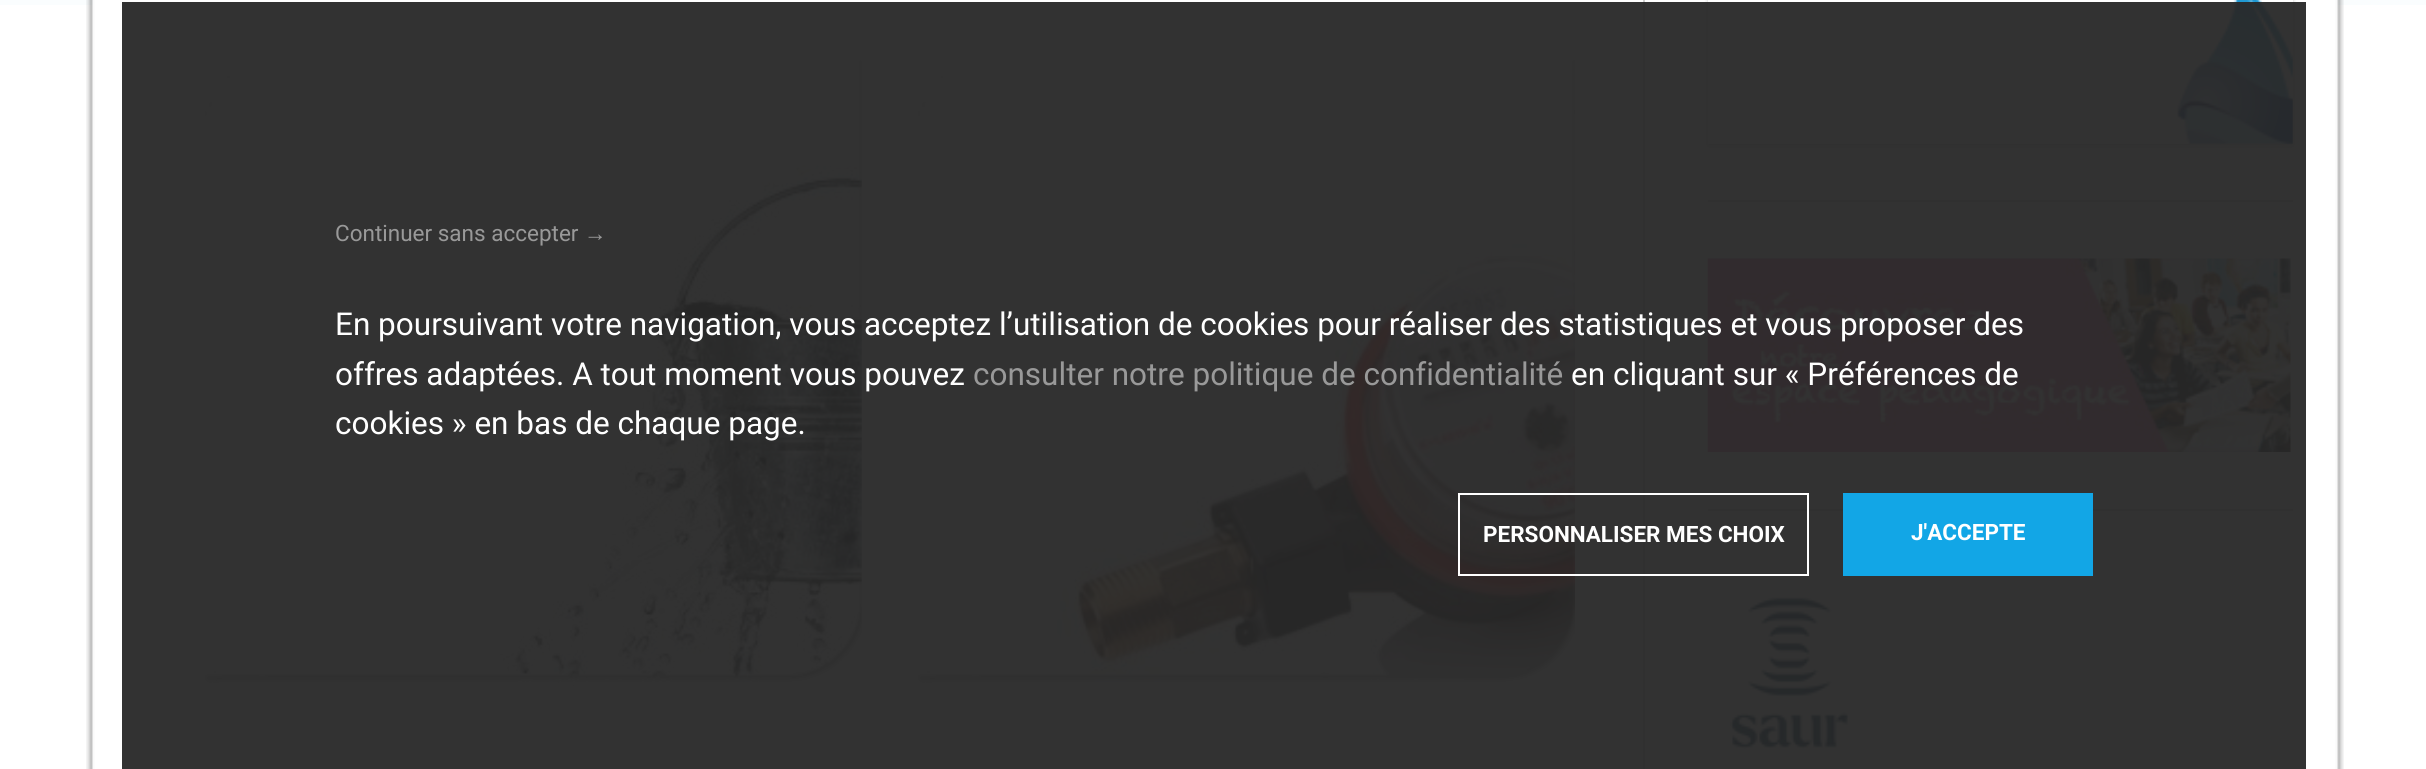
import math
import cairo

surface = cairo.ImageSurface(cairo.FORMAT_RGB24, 2426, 769)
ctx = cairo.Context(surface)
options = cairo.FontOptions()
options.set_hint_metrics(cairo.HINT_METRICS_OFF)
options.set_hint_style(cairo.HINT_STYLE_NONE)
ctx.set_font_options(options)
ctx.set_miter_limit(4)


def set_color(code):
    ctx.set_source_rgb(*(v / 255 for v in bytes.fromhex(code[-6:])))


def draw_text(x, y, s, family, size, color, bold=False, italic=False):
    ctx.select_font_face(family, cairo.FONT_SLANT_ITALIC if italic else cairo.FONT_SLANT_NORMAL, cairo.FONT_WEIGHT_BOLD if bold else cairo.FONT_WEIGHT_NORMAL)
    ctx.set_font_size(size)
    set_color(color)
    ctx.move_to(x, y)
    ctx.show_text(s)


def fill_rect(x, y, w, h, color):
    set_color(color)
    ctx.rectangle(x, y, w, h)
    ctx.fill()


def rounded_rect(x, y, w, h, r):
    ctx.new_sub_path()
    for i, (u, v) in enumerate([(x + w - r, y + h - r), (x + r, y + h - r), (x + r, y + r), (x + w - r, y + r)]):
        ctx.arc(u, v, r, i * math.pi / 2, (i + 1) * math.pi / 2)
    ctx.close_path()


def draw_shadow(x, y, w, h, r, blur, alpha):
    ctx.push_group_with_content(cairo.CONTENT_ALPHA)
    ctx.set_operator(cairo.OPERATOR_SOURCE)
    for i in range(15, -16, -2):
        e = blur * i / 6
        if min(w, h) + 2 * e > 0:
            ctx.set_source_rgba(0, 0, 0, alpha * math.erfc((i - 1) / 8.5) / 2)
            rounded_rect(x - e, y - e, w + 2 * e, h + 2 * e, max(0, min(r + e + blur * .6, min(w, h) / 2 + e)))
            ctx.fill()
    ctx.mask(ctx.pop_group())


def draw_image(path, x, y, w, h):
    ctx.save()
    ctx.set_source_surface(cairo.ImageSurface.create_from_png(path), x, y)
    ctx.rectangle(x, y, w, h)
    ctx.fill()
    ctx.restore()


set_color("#ffffff")
ctx.paint()
fill_rect(0, 0, 2426, 5, "#fafdfe")
draw_image("assets/img1.png", 86, 0, 2258, 769)
draw_image("assets/img2.png", 204, 60, 658, 628)
draw_image("assets/img3.png", 918, 60, 657, 624)
fill_rect(1643, 0, 2, 769, "#cfcfcf")
ctx.save()
ctx.set_fill_rule(cairo.FILL_RULE_EVEN_ODD)
ctx.new_path()
ctx.move_to(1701, 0)
ctx.line_to(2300, 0)
ctx.line_to(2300, 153)
ctx.line_to(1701, 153)
ctx.close_path()
ctx.move_to(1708, -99)
ctx.line_to(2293, -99)
ctx.line_to(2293, 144)
ctx.line_to(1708, 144)
ctx.close_path()
ctx.clip()
set_color("#000000")
draw_shadow(1708, -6, 585, 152, 0, 2, 0.2)
ctx.restore()
draw_image("assets/img4.png", 2177, 0, 116, 144)
fill_rect(1708, 200, 585, 2, "#cccccc")
draw_image("assets/img5.png", 1707, 258, 584, 194)
fill_rect(1708, 509, 585, 2, "#cccccc")
draw_image("assets/img6.png", 1729, 597, 121, 153)
ctx.set_source_rgba(0.157, 0.157, 0.157, 0.95)
ctx.rectangle(122, 2, 2184, 767)
ctx.fill()
draw_text(335, 241, "Continuer sans accepter", "Roboto", 22.5, "#999999")
draw_text(584, 241, "→", "Liberation Sans", 22.5, "#999999")
draw_text(335, 335, "En poursuivant votre navigation, vous acceptez l’utilisation de cookies pour réaliser des statistiques et vous proposer des", "Roboto", 31.5, "#ffffff")
draw_text(335, 385, "offres adaptées. A tout moment vous pouvez", "Roboto", 31.5, "#ffffff")
draw_text(973, 385, "consulter notre politique de confidentialité", "Roboto", 31.5, "#999999")
draw_text(1571, 385, "en cliquant sur « Préférences de", "Roboto", 31.5, "#ffffff")
draw_text(335, 434, "cookies » en bas de chaque page.", "Roboto", 31.5, "#ffffff")
ctx.rectangle(1459, 494, 349, 81)
ctx.stroke()
draw_text(1483, 542, "PERSONNALISER MES CHOIX", "Roboto", 22.5, "#ffffff", bold=True)
fill_rect(1843, 493, 250, 83, "#12a6e6")
draw_text(1911, 540, "J'ACCEPTE", "Roboto", 22.5, "#ffffff", bold=True)
surface.write_to_png("output.png")
